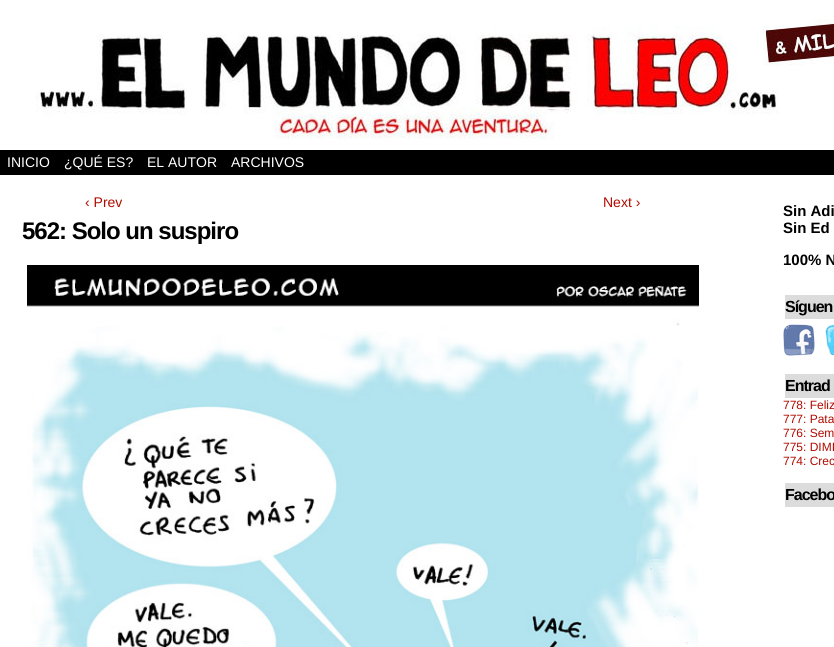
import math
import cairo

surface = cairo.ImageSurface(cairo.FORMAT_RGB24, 834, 647)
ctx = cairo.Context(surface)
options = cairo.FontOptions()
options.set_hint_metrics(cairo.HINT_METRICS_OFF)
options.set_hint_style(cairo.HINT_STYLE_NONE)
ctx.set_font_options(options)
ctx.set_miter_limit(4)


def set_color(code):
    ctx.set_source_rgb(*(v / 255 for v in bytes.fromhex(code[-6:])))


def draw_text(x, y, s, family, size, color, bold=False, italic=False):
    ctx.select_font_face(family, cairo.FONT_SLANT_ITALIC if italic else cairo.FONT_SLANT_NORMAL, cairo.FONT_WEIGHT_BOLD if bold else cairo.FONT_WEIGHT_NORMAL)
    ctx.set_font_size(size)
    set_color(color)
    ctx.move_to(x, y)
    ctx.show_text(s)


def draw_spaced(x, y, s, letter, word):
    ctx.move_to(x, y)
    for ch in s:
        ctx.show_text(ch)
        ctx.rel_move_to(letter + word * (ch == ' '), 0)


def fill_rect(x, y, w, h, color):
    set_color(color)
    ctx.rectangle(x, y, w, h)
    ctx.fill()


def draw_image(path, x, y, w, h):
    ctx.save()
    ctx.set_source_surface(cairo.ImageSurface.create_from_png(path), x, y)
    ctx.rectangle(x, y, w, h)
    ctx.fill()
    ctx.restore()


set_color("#ffffff")
ctx.paint()
draw_image("assets/img1.png", 36, 19, 798, 121)
fill_rect(0, 150, 834, 25, "#000000")
draw_text(7, 167, "INICIO", "Liberation Sans", 14, "#ffffff")
draw_text(64, 167, "¿QUÉ ES?", "Liberation Sans", 14, "#ffffff")
draw_text(147, 167, "EL AUTOR", "Liberation Sans", 14, "#ffffff")
draw_text(231, 167, "ARCHIVOS", "Liberation Sans", 14, "#ffffff")
draw_text(85, 207, "‹ Prev", "Liberation Sans", 14, "#b00b00")
draw_text(603, 207, "Next ›", "Liberation Sans", 14, "#b00b00")
ctx.select_font_face("Liberation Sans", cairo.FONT_SLANT_NORMAL, cairo.FONT_WEIGHT_BOLD)
ctx.set_font_size(24)
set_color("#000000")
draw_spaced(22, 239, "562: Solo un suspiro", -1, 0)
draw_image("assets/img2.png", 27, 265, 672, 382)
draw_text(783, 216, "Sin Adi", "Liberation Sans", 15, "#000000", bold=True)
draw_text(783, 233, "Sin Ed", "Liberation Sans", 15, "#000000", bold=True)
draw_text(783, 265, "100% N", "Liberation Sans", 15, "#000000", bold=True)
fill_rect(785, 295, 49, 24, "#dcdcdc")
ctx.set_font_size(16)
set_color("#000000")
draw_spaced(785, 312, "Síguen", -1, 0)
draw_image("assets/img3.png", 783, 324, 32, 32)
draw_image("assets/img4.png", 825, 324, 9, 32)
fill_rect(785, 374, 49, 24, "#dcdcdc")
set_color("#000000")
draw_spaced(785, 391, "Entrad", -1, 0)
draw_text(783, 409, "778: Feliz", "Liberation Sans", 12, "#b00b00")
draw_text(783, 423, "777: Pata", "Liberation Sans", 12, "#b00b00")
draw_text(783, 437, "776: Sem", "Liberation Sans", 12, "#b00b00")
draw_text(783, 451, "775: DIMI", "Liberation Sans", 12, "#b00b00")
draw_text(783, 465, "774: Crec", "Liberation Sans", 12, "#b00b00")
fill_rect(785, 483, 49, 24, "#dcdcdc")
ctx.select_font_face("Liberation Sans", cairo.FONT_SLANT_NORMAL, cairo.FONT_WEIGHT_BOLD)
ctx.set_font_size(16)
set_color("#000000")
draw_spaced(785, 500, "Facebo", -1, 0)
surface.write_to_png("output.png")
